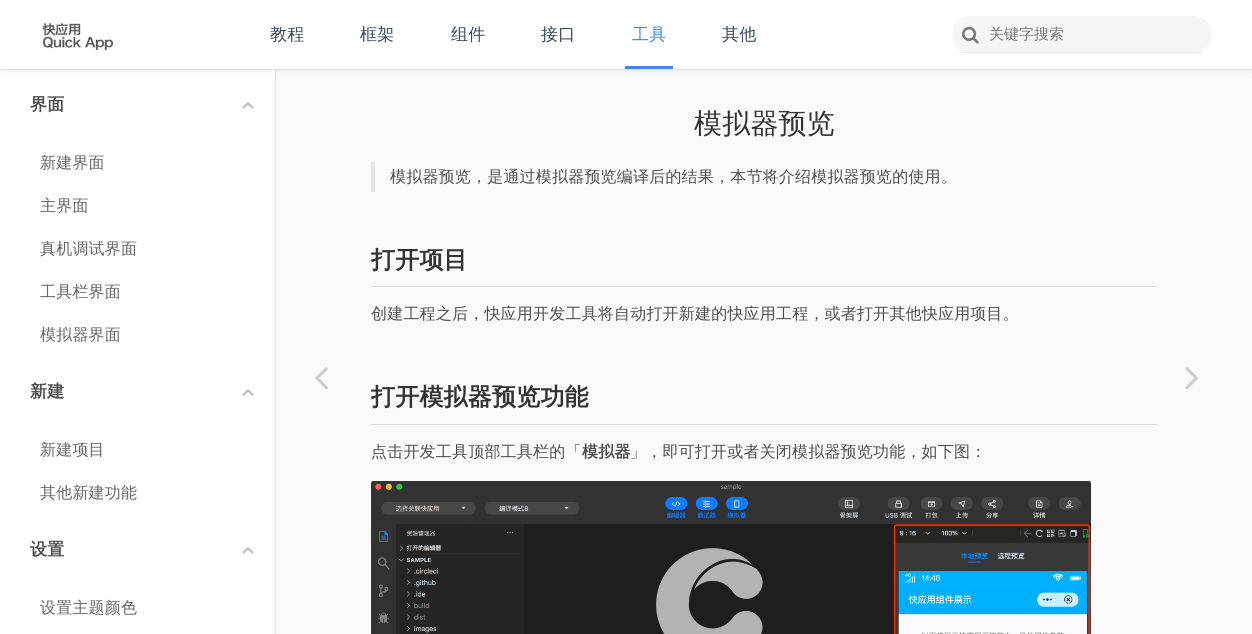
import math
import cairo

surface = cairo.ImageSurface(cairo.FORMAT_RGB24, 1252, 634)
ctx = cairo.Context(surface)
options = cairo.FontOptions()
options.set_hint_metrics(cairo.HINT_METRICS_OFF)
options.set_hint_style(cairo.HINT_STYLE_NONE)
ctx.set_font_options(options)
ctx.set_miter_limit(4)


def set_color(code):
    ctx.set_source_rgb(*(v / 255 for v in bytes.fromhex(code[-6:])))


def draw_text(x, y, s, family, size, color, bold=False, italic=False):
    ctx.select_font_face(family, cairo.FONT_SLANT_ITALIC if italic else cairo.FONT_SLANT_NORMAL, cairo.FONT_WEIGHT_BOLD if bold else cairo.FONT_WEIGHT_NORMAL)
    ctx.set_font_size(size)
    set_color(color)
    ctx.move_to(x, y)
    ctx.show_text(s)


def draw_spaced(x, y, s, letter, word):
    ctx.move_to(x, y)
    for ch in s:
        ctx.show_text(ch)
        ctx.rel_move_to(letter + word * (ch == ' '), 0)


def fill_rect(x, y, w, h, color):
    set_color(color)
    ctx.rectangle(x, y, w, h)
    ctx.fill()


def rounded_rect(x, y, w, h, r):
    ctx.new_sub_path()
    for i, (u, v) in enumerate([(x + w - r, y + h - r), (x + r, y + h - r), (x + r, y + r), (x + w - r, y + r)]):
        ctx.arc(u, v, r, i * math.pi / 2, (i + 1) * math.pi / 2)
    ctx.close_path()


def draw_shadow(x, y, w, h, r, blur, alpha):
    ctx.push_group_with_content(cairo.CONTENT_ALPHA)
    ctx.set_operator(cairo.OPERATOR_SOURCE)
    for i in range(15, -16, -2):
        e = blur * i / 6
        if min(w, h) + 2 * e > 0:
            ctx.set_source_rgba(0, 0, 0, alpha * math.erfc((i - 1) / 8.5) / 2)
            rounded_rect(x - e, y - e, w + 2 * e, h + 2 * e, max(0, min(r + e + blur * .6, min(w, h) / 2 + e)))
            ctx.fill()
    ctx.mask(ctx.pop_group())


def draw_image(path, x, y, w, h):
    ctx.save()
    ctx.set_source_surface(cairo.ImageSurface.create_from_png(path), x, y)
    ctx.rectangle(x, y, w, h)
    ctx.fill()
    ctx.restore()


set_color("#ffffff")
ctx.paint()
fill_rect(276, 70, 976, 564, "#fafafa")
fill_rect(275, 70, 1, 564, "#dfe2e5")
set_color("#000000")
draw_shadow(0, 2, 1252, 70, 0, 2, 0.06)
fill_rect(0, 0, 1252, 69, "#ffffff")
fill_rect(0, 69, 1252, 1, "#dfe2e5")
draw_image("assets/img1.png", 42, 23, 71, 27)
ctx.select_font_face("WenQuanYi Zen Hei Medium")
ctx.set_font_size(17)
set_color("#34495e")
draw_spaced(270, 40, "教程", 0.2, 0)
draw_spaced(360, 40, "框架", 0.2, 0)
draw_spaced(451, 40, "组件", 0.2, 0)
draw_spaced(541, 40, "接口", 0.2, 0)
fill_rect(625, 66, 48, 3, "#4285f5")
draw_spaced(632, 40, "工具", 0.2, 0)
set_color("#34495e")
draw_spaced(722, 40, "其他", 0.2, 0)
set_color("#f5f5f5")
rounded_rect(952, 16, 260, 37, 18)
ctx.fill()
ctx.set_source_rgba(0, 0, 0, 0.07)
ctx.rectangle(961, 52, 242, 1)
ctx.fill()
draw_image("assets/img2.png", 962, 26, 17, 18)
draw_text(989, 39, "关键字搜索", "WenQuanYi Zen Hei Medium", 15, "#757575")
ctx.select_font_face("WenQuanYi Zen Hei", cairo.FONT_SLANT_NORMAL, cairo.FONT_WEIGHT_BOLD)
ctx.set_font_size(17)
set_color("#4d4d4d")
draw_spaced(30, 110, "界面", 0.2, 0)
draw_image("assets/img3.png", 242, 102, 12, 7)
ctx.select_font_face("WenQuanYi Zen Hei Medium")
ctx.set_font_size(16)
set_color("#666666")
draw_spaced(40, 168, "新建界面", 0.2, 0)
draw_spaced(40, 211, "主界面", 0.2, 0)
draw_spaced(40, 254, "真机调试界面", 0.2, 0)
draw_spaced(40, 297, "工具栏界面", 0.2, 0)
draw_spaced(40, 340, "模拟器界面", 0.2, 0)
ctx.select_font_face("WenQuanYi Zen Hei", cairo.FONT_SLANT_NORMAL, cairo.FONT_WEIGHT_BOLD)
ctx.set_font_size(17)
set_color("#4d4d4d")
draw_spaced(30, 397, "新建", 0.2, 0)
draw_image("assets/img3.png", 242, 389, 12, 7)
ctx.select_font_face("WenQuanYi Zen Hei Medium")
ctx.set_font_size(16)
set_color("#666666")
draw_spaced(40, 455, "新建项目", 0.2, 0)
draw_spaced(40, 498, "其他新建功能", 0.2, 0)
ctx.select_font_face("WenQuanYi Zen Hei", cairo.FONT_SLANT_NORMAL, cairo.FONT_WEIGHT_BOLD)
ctx.set_font_size(17)
set_color("#4d4d4d")
draw_spaced(30, 555, "设置", 0.2, 0)
draw_image("assets/img3.png", 242, 547, 12, 7)
ctx.select_font_face("WenQuanYi Zen Hei Medium")
ctx.set_font_size(16)
set_color("#666666")
draw_spaced(40, 613, "设置主题颜色", 0.2, 0)
draw_image("assets/img4.png", 315, 367, 13, 23)
ctx.set_font_size(28)
set_color("#333333")
draw_spaced(694, 133, "模拟器预览", 0.2, 0)
fill_rect(371, 162, 4, 30, "#e5e5e5")
ctx.set_font_size(16)
set_color("#4d4d4d")
draw_spaced(390, 182, "模拟器预览，是通过模拟器预览编译后的结果，本节将介绍模拟器预览的使用。", 0.2, 0)
fill_rect(371, 286, 786, 1, "#dddddd")
ctx.select_font_face("WenQuanYi Zen Hei", cairo.FONT_SLANT_NORMAL, cairo.FONT_WEIGHT_BOLD)
ctx.set_font_size(24)
set_color("#333333")
draw_spaced(371, 268, "打开项目", 0.2, 0)
ctx.select_font_face("WenQuanYi Zen Hei Medium")
ctx.set_font_size(16)
set_color("#4d4d4d")
draw_spaced(371, 319, "创建工程之后，快应用开发工具将自动打开新建的快应用工程，或者打开其他快应用项目。", 0.2, 0)
fill_rect(371, 424, 786, 1, "#dddddd")
ctx.select_font_face("WenQuanYi Zen Hei", cairo.FONT_SLANT_NORMAL, cairo.FONT_WEIGHT_BOLD)
ctx.set_font_size(24)
set_color("#333333")
draw_spaced(371, 405, "打开模拟器预览功能", 0.2, 0)
ctx.select_font_face("WenQuanYi Zen Hei Medium")
ctx.set_font_size(16)
set_color("#4d4d4d")
draw_spaced(371, 457, "点击开发工具顶部工具栏的「", 0.2, 0)
ctx.select_font_face("WenQuanYi Zen Hei", cairo.FONT_SLANT_NORMAL, cairo.FONT_WEIGHT_BOLD)
draw_spaced(582, 457, "模拟器", 0.2, 0)
ctx.select_font_face("WenQuanYi Zen Hei Medium")
draw_spaced(630, 457, "」，即可打开或者关闭模拟器预览功能，如下图：", 0.2, 0)
draw_image("assets/img5.png", 371, 481, 720, 153)
draw_image("assets/img6.png", 1185, 367, 14, 23)
surface.write_to_png("output.png")
